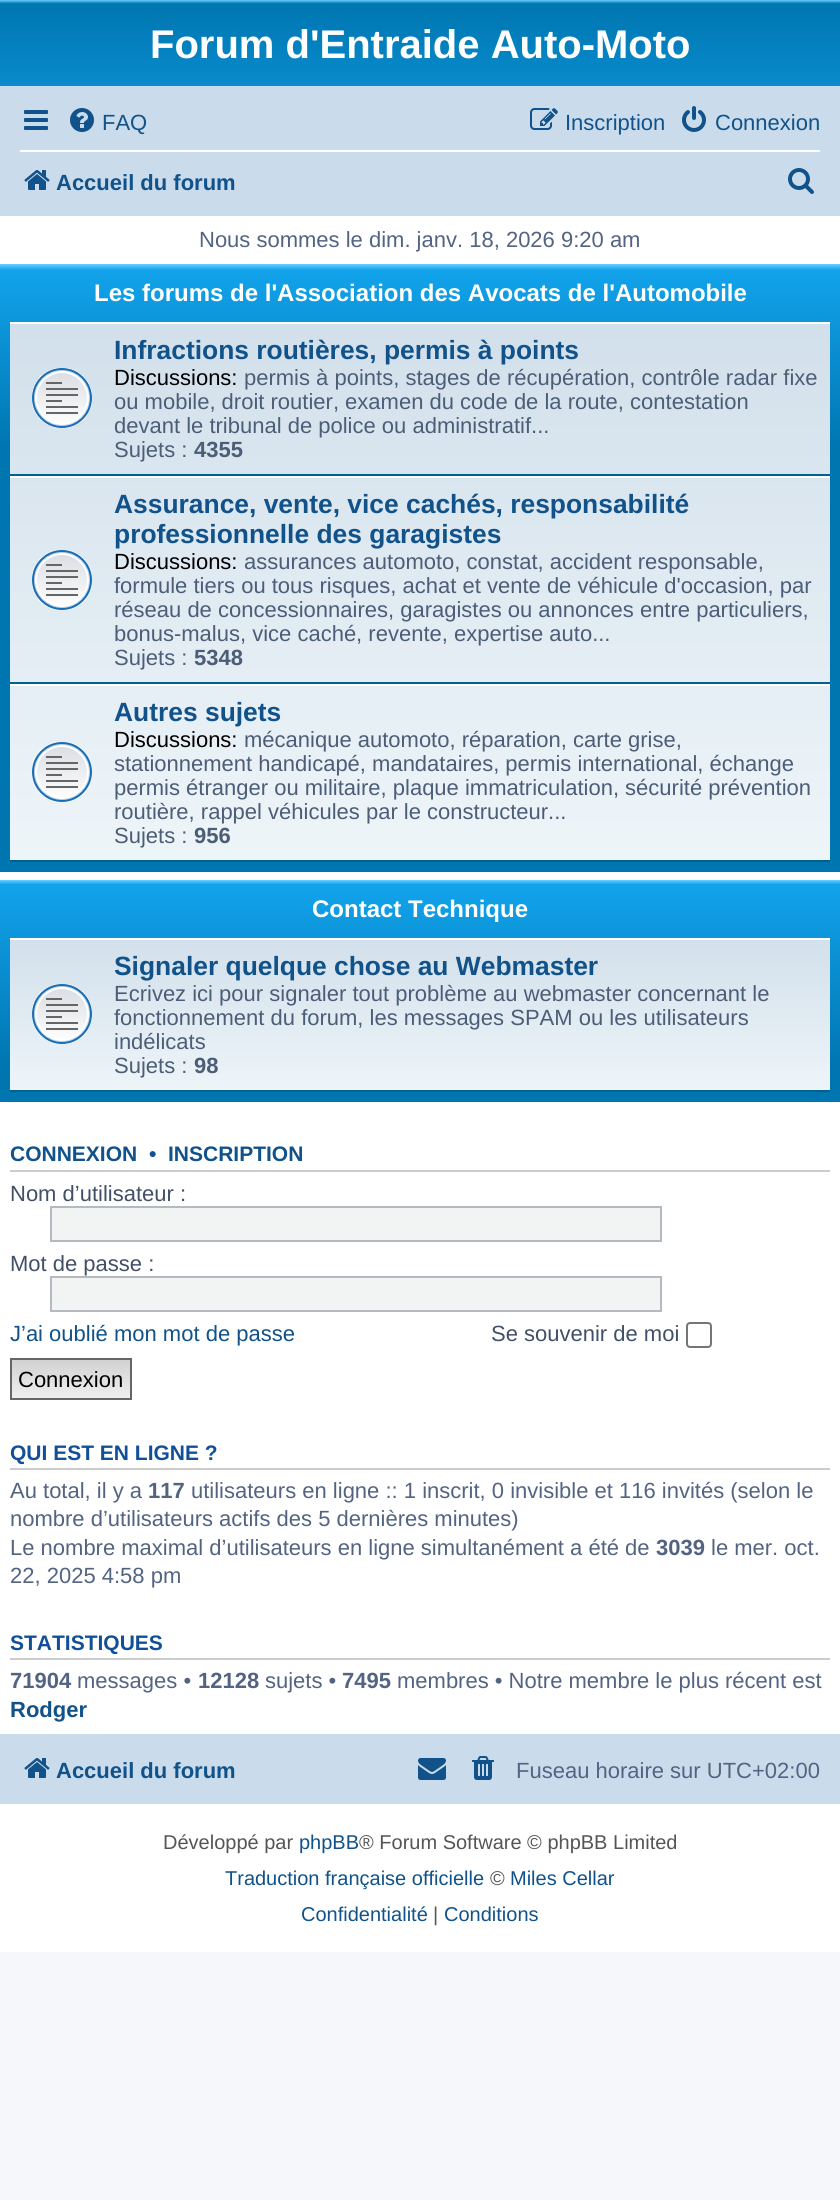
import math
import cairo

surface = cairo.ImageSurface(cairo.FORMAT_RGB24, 840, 2200)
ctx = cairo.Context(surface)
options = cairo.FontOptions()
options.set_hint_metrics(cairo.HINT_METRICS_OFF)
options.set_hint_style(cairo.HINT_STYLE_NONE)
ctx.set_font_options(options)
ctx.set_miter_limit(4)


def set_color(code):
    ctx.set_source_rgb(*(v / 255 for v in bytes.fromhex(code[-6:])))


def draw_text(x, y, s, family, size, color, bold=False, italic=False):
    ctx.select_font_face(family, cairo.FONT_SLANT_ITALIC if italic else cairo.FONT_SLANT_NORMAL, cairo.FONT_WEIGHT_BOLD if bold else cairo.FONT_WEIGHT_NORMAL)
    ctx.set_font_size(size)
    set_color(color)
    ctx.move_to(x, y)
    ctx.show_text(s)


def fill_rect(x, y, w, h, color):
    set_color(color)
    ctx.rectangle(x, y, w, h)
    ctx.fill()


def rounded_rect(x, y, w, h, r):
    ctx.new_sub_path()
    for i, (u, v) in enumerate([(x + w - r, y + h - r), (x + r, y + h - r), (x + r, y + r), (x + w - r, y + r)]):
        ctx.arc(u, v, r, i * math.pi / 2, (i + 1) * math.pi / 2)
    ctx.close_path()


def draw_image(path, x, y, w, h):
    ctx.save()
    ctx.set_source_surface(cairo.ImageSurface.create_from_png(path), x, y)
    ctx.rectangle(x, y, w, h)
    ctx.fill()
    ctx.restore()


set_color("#f5f7fa")
ctx.paint()
fill_rect(0, 216, 840, 1736, "#ffffff")
gradient = cairo.LinearGradient(420, 0, 420, 184)
gradient.add_color_stop_rgba(0, 0.416, 0.808, 1, 1)
gradient.add_color_stop_rgba(0.02, 0, 0.463, 0.694, 1)
gradient.add_color_stop_rgba(1, 0.071, 0.639, 0.922, 1)
ctx.set_source(gradient)
ctx.rectangle(0, 0, 840, 86)
ctx.fill()
draw_text(150, 58, "Forum d'Entraide Auto-Moto", "Liberation Sans", 40, "#ffffff", bold=True)
fill_rect(0, 86, 840, 130, "#cadceb")
draw_image("assets/img1.png", 24, 110, 24, 20)
draw_image("assets/img2.png", 70, 108, 24, 24)
draw_text(102, 130, "FAQ", "Liberation Sans", 22, "#105289")
draw_image("assets/img3.png", 530, 108, 28, 22)
draw_text(565, 130, "Inscription", "Liberation Sans", 22, "#105289")
draw_image("assets/img4.png", 682, 106, 24, 26)
draw_text(715, 130, "Connexion", "Liberation Sans", 22, "#105289")
fill_rect(20, 150, 800, 2, "#ffffff")
draw_image("assets/img5.png", 24, 170, 26, 20)
draw_text(56, 190, "Accueil du forum", "Liberation Sans", 22, "#105289", bold=True)
draw_image("assets/img6.png", 788, 168, 26, 26)
draw_text(199, 247, "Nous sommes le dim. janv. 18, 2026 9:20 am", "Liberation Sans", 22, "#536482")
gradient = cairo.LinearGradient(420, 264, 420, 872)
gradient.add_color_stop_rgba(0, 0.416, 0.808, 1, 1)
gradient.add_color_stop_rgba(0.01, 0.071, 0.639, 0.922, 1)
gradient.add_color_stop_rgba(0.3, 0, 0.463, 0.694, 1)
gradient.add_color_stop_rgba(1, 0, 0.463, 0.694, 1)
ctx.set_source(gradient)
ctx.rectangle(0, 264, 840, 608)
ctx.fill()
draw_text(94, 301, "Les forums de l'Association des Avocats de l'Automobile", "Liberation Sans", 24, "#ffffff", bold=True)
gradient = cairo.LinearGradient(420, 322, 420, 862)
gradient.add_color_stop_rgba(0, 0.824, 0.878, 0.922, 1)
gradient.add_color_stop_rgba(1, 0.933, 0.961, 0.976, 1)
ctx.set_source(gradient)
ctx.rectangle(10, 324, 820, 536)
ctx.fill()
fill_rect(10, 322, 820, 2, "#ffffff")
fill_rect(10, 474, 820, 2, "#00608f")
draw_image("assets/img7.png", 32, 368, 60, 60)
draw_text(114, 359, "Infractions routières, permis à points", "Liberation Sans", 26.4, "#105289", bold=True)
draw_text(114, 385, "Discussions:", "Liberation Sans", 22, "#000000")
draw_text(244, 385, "permis à points, stages de récupération, contrôle radar fixe", "Liberation Sans", 22, "#4c5d77")
draw_text(114, 409, "ou mobile, droit routier, examen du code de la route, contestation", "Liberation Sans", 22, "#4c5d77")
draw_text(114, 433, "devant le tribunal de police ou administratif...", "Liberation Sans", 22, "#4c5d77")
draw_text(114, 457, "Sujets :", "Liberation Sans", 22, "#4c5d77")
draw_text(194, 457, "4355", "Liberation Sans", 22, "#4c5d77", bold=True)
fill_rect(10, 476, 820, 2, "#ffffff")
fill_rect(10, 682, 820, 2, "#00608f")
draw_image("assets/img8.png", 32, 550, 60, 60)
draw_text(114, 513, "Assurance, vente, vice cachés, responsabilité", "Liberation Sans", 26.4, "#105289", bold=True)
draw_text(114, 543, "professionnelle des garagistes", "Liberation Sans", 26.4, "#105289", bold=True)
draw_text(114, 569, "Discussions:", "Liberation Sans", 22, "#000000")
draw_text(244, 569, "assurances automoto, constat, accident responsable,", "Liberation Sans", 22, "#4c5d77")
draw_text(114, 593, "formule tiers ou tous risques, achat et vente de véhicule d'occasion, par", "Liberation Sans", 22, "#4c5d77")
draw_text(114, 617, "réseau de concessionnaires, garagistes ou annonces entre particuliers,", "Liberation Sans", 22, "#4c5d77")
draw_text(114, 641, "bonus-malus, vice caché, revente, expertise auto...", "Liberation Sans", 22, "#4c5d77")
draw_text(114, 665, "Sujets :", "Liberation Sans", 22, "#4c5d77")
draw_text(194, 665, "5348", "Liberation Sans", 22, "#4c5d77", bold=True)
fill_rect(10, 684, 820, 2, "#ffffff")
fill_rect(10, 860, 820, 2, "#00608f")
draw_image("assets/img9.png", 32, 742, 60, 60)
draw_text(114, 721, "Autres sujets", "Liberation Sans", 26.4, "#105289", bold=True)
draw_text(114, 747, "Discussions:", "Liberation Sans", 22, "#000000")
draw_text(244, 747, "mécanique automoto, réparation, carte grise,", "Liberation Sans", 22, "#4c5d77")
draw_text(114, 771, "stationnement handicapé, mandataires, permis international, échange", "Liberation Sans", 22, "#4c5d77")
draw_text(114, 795, "permis étranger ou militaire, plaque immatriculation, sécurité prévention", "Liberation Sans", 22, "#4c5d77")
draw_text(114, 819, "routière, rappel véhicules par le constructeur...", "Liberation Sans", 22, "#4c5d77")
draw_text(114, 843, "Sujets :", "Liberation Sans", 22, "#4c5d77")
draw_text(194, 843, "956", "Liberation Sans", 22, "#4c5d77", bold=True)
gradient = cairo.LinearGradient(420, 880, 420, 1102)
gradient.add_color_stop_rgba(0, 0.416, 0.808, 1, 1)
gradient.add_color_stop_rgba(0.02, 0.071, 0.639, 0.922, 1)
gradient.add_color_stop_rgba(0.83, 0, 0.463, 0.694, 1)
gradient.add_color_stop_rgba(1, 0, 0.463, 0.694, 1)
ctx.set_source(gradient)
ctx.rectangle(0, 880, 840, 222)
ctx.fill()
draw_text(312, 917, "Contact Technique", "Liberation Sans", 24, "#ffffff", bold=True)
gradient = cairo.LinearGradient(420, 938, 420, 1092)
gradient.add_color_stop_rgba(0, 0.824, 0.878, 0.922, 1)
gradient.add_color_stop_rgba(1, 0.933, 0.961, 0.976, 1)
ctx.set_source(gradient)
ctx.rectangle(10, 940, 820, 150)
ctx.fill()
fill_rect(10, 938, 820, 2, "#ffffff")
fill_rect(10, 1090, 820, 2, "#00608f")
draw_image("assets/img10.png", 32, 984, 60, 60)
draw_text(114, 975, "Signaler quelque chose au Webmaster", "Liberation Sans", 26.4, "#105289", bold=True)
draw_text(114, 1001, "Ecrivez ici pour signaler tout problème au webmaster concernant le", "Liberation Sans", 22, "#4c5d77")
draw_text(114, 1025, "fonctionnement du forum, les messages SPAM ou les utilisateurs", "Liberation Sans", 22, "#4c5d77")
draw_text(114, 1049, "indélicats", "Liberation Sans", 22, "#4c5d77")
draw_text(114, 1073, "Sujets :", "Liberation Sans", 22, "#4c5d77")
draw_text(194, 1073, "98", "Liberation Sans", 22, "#4c5d77", bold=True)
fill_rect(10, 1170, 820, 2, "#cccccc")
draw_text(10, 1161, "CONNEXION", "Liberation Sans", 21, "#105289", bold=True)
draw_text(149, 1161, "•", "Liberation Sans", 21, "#115098", bold=True)
draw_text(168, 1161, "INSCRIPTION", "Liberation Sans", 21, "#105289", bold=True)
draw_text(10, 1201, "Nom d’utilisateur :", "Liberation Sans", 22, "#425067")
set_color("#f2f3f3")
ctx.rectangle(51, 1207, 610, 34)
ctx.fill_preserve()
set_color("#b4bac0")
ctx.stroke()
draw_text(10, 1271, "Mot de passe :", "Liberation Sans", 22, "#425067")
set_color("#f2f3f3")
ctx.rectangle(51, 1277, 610, 34)
ctx.fill_preserve()
set_color("#b4bac0")
ctx.stroke()
draw_text(10, 1341, "J’ai oublié mon mot de passe", "Liberation Sans", 22, "#105289")
draw_text(491, 1341, "Se souvenir de moi", "Liberation Sans", 22, "#425067")
rounded_rect(687, 1323, 24, 24, 3)
set_color("#767676")
ctx.stroke()
gradient = cairo.LinearGradient(71, 1360, 71, 1398)
gradient.add_color_stop_rgba(0, 0.824, 0.824, 0.824, 1)
gradient.add_color_stop_rgba(1, 0.937, 0.937, 0.937, 1)
ctx.set_source(gradient)
ctx.rectangle(12, 1360, 118, 38)
ctx.fill()
ctx.rectangle(11, 1359, 120, 40)
set_color("#666666")
ctx.stroke()
draw_text(18, 1387, "Connexion", "Liberation Sans", 22, "#000000")
fill_rect(10, 1468, 820, 2, "#cccccc")
draw_text(10, 1460, "QUI EST EN LIGNE ?", "Liberation Sans", 21, "#115098", bold=True)
draw_text(10, 1498, "Au total, il y a", "Liberation Sans", 22, "#536482")
draw_text(148, 1498, "117", "Liberation Sans", 22, "#536482", bold=True)
draw_text(191, 1498, "utilisateurs en ligne :: 1 inscrit, 0 invisible et 116 invités (selon le", "Liberation Sans", 22, "#536482")
draw_text(10, 1526, "nombre d’utilisateurs actifs des 5 dernières minutes)", "Liberation Sans", 22, "#536482")
draw_text(10, 1555, "Le nombre maximal d’utilisateurs en ligne simultanément a été de", "Liberation Sans", 22, "#536482")
draw_text(656, 1555, "3039", "Liberation Sans", 22, "#536482", bold=True)
draw_text(711, 1555, "le mer. oct.", "Liberation Sans", 22, "#536482")
draw_text(10, 1583, "22, 2025 4:58 pm", "Liberation Sans", 22, "#536482")
fill_rect(10, 1658, 820, 2, "#cccccc")
draw_text(10, 1650, "STATISTIQUES", "Liberation Sans", 21, "#115098", bold=True)
draw_text(10, 1688, "71904", "Liberation Sans", 22, "#536482", bold=True)
draw_text(77, 1688, "messages •", "Liberation Sans", 22, "#536482")
draw_text(198, 1688, "12128", "Liberation Sans", 22, "#536482", bold=True)
draw_text(265, 1688, "sujets •", "Liberation Sans", 22, "#536482")
draw_text(342, 1688, "7495", "Liberation Sans", 22, "#536482", bold=True)
draw_text(397, 1688, "membres • Notre membre le plus récent est", "Liberation Sans", 22, "#536482")
draw_text(10, 1717, "Rodger", "Liberation Sans", 22, "#105289", bold=True)
fill_rect(0, 1734, 840, 70, "#cadceb")
draw_image("assets/img5.png", 24, 1758, 26, 20)
draw_text(56, 1778, "Accueil du forum", "Liberation Sans", 22, "#105289", bold=True)
draw_image("assets/img11.png", 418, 1758, 28, 22)
draw_image("assets/img12.png", 472, 1756, 22, 24)
draw_text(516, 1778, "Fuseau horaire sur UTC+02:00", "Liberation Sans", 22, "#536482")
draw_text(163, 1849, "Développé par", "Liberation Sans", 20, "#555555")
draw_text(299, 1849, "phpBB", "Liberation Sans", 20, "#105289")
draw_text(359, 1849, "® Forum Software © phpBB Limited", "Liberation Sans", 20, "#555555")
draw_text(225, 1885, "Traduction française officielle", "Liberation Sans", 20, "#105289")
draw_text(490, 1885, "©", "Liberation Sans", 20, "#555555")
draw_text(510, 1885, "Miles Cellar", "Liberation Sans", 20, "#105289")
draw_text(301, 1921, "Confidentialité", "Liberation Sans", 20, "#105289")
draw_text(433, 1921, "|", "Liberation Sans", 20, "#555555")
draw_text(444, 1921, "Conditions", "Liberation Sans", 20, "#105289")
surface.write_to_png("output.png")
